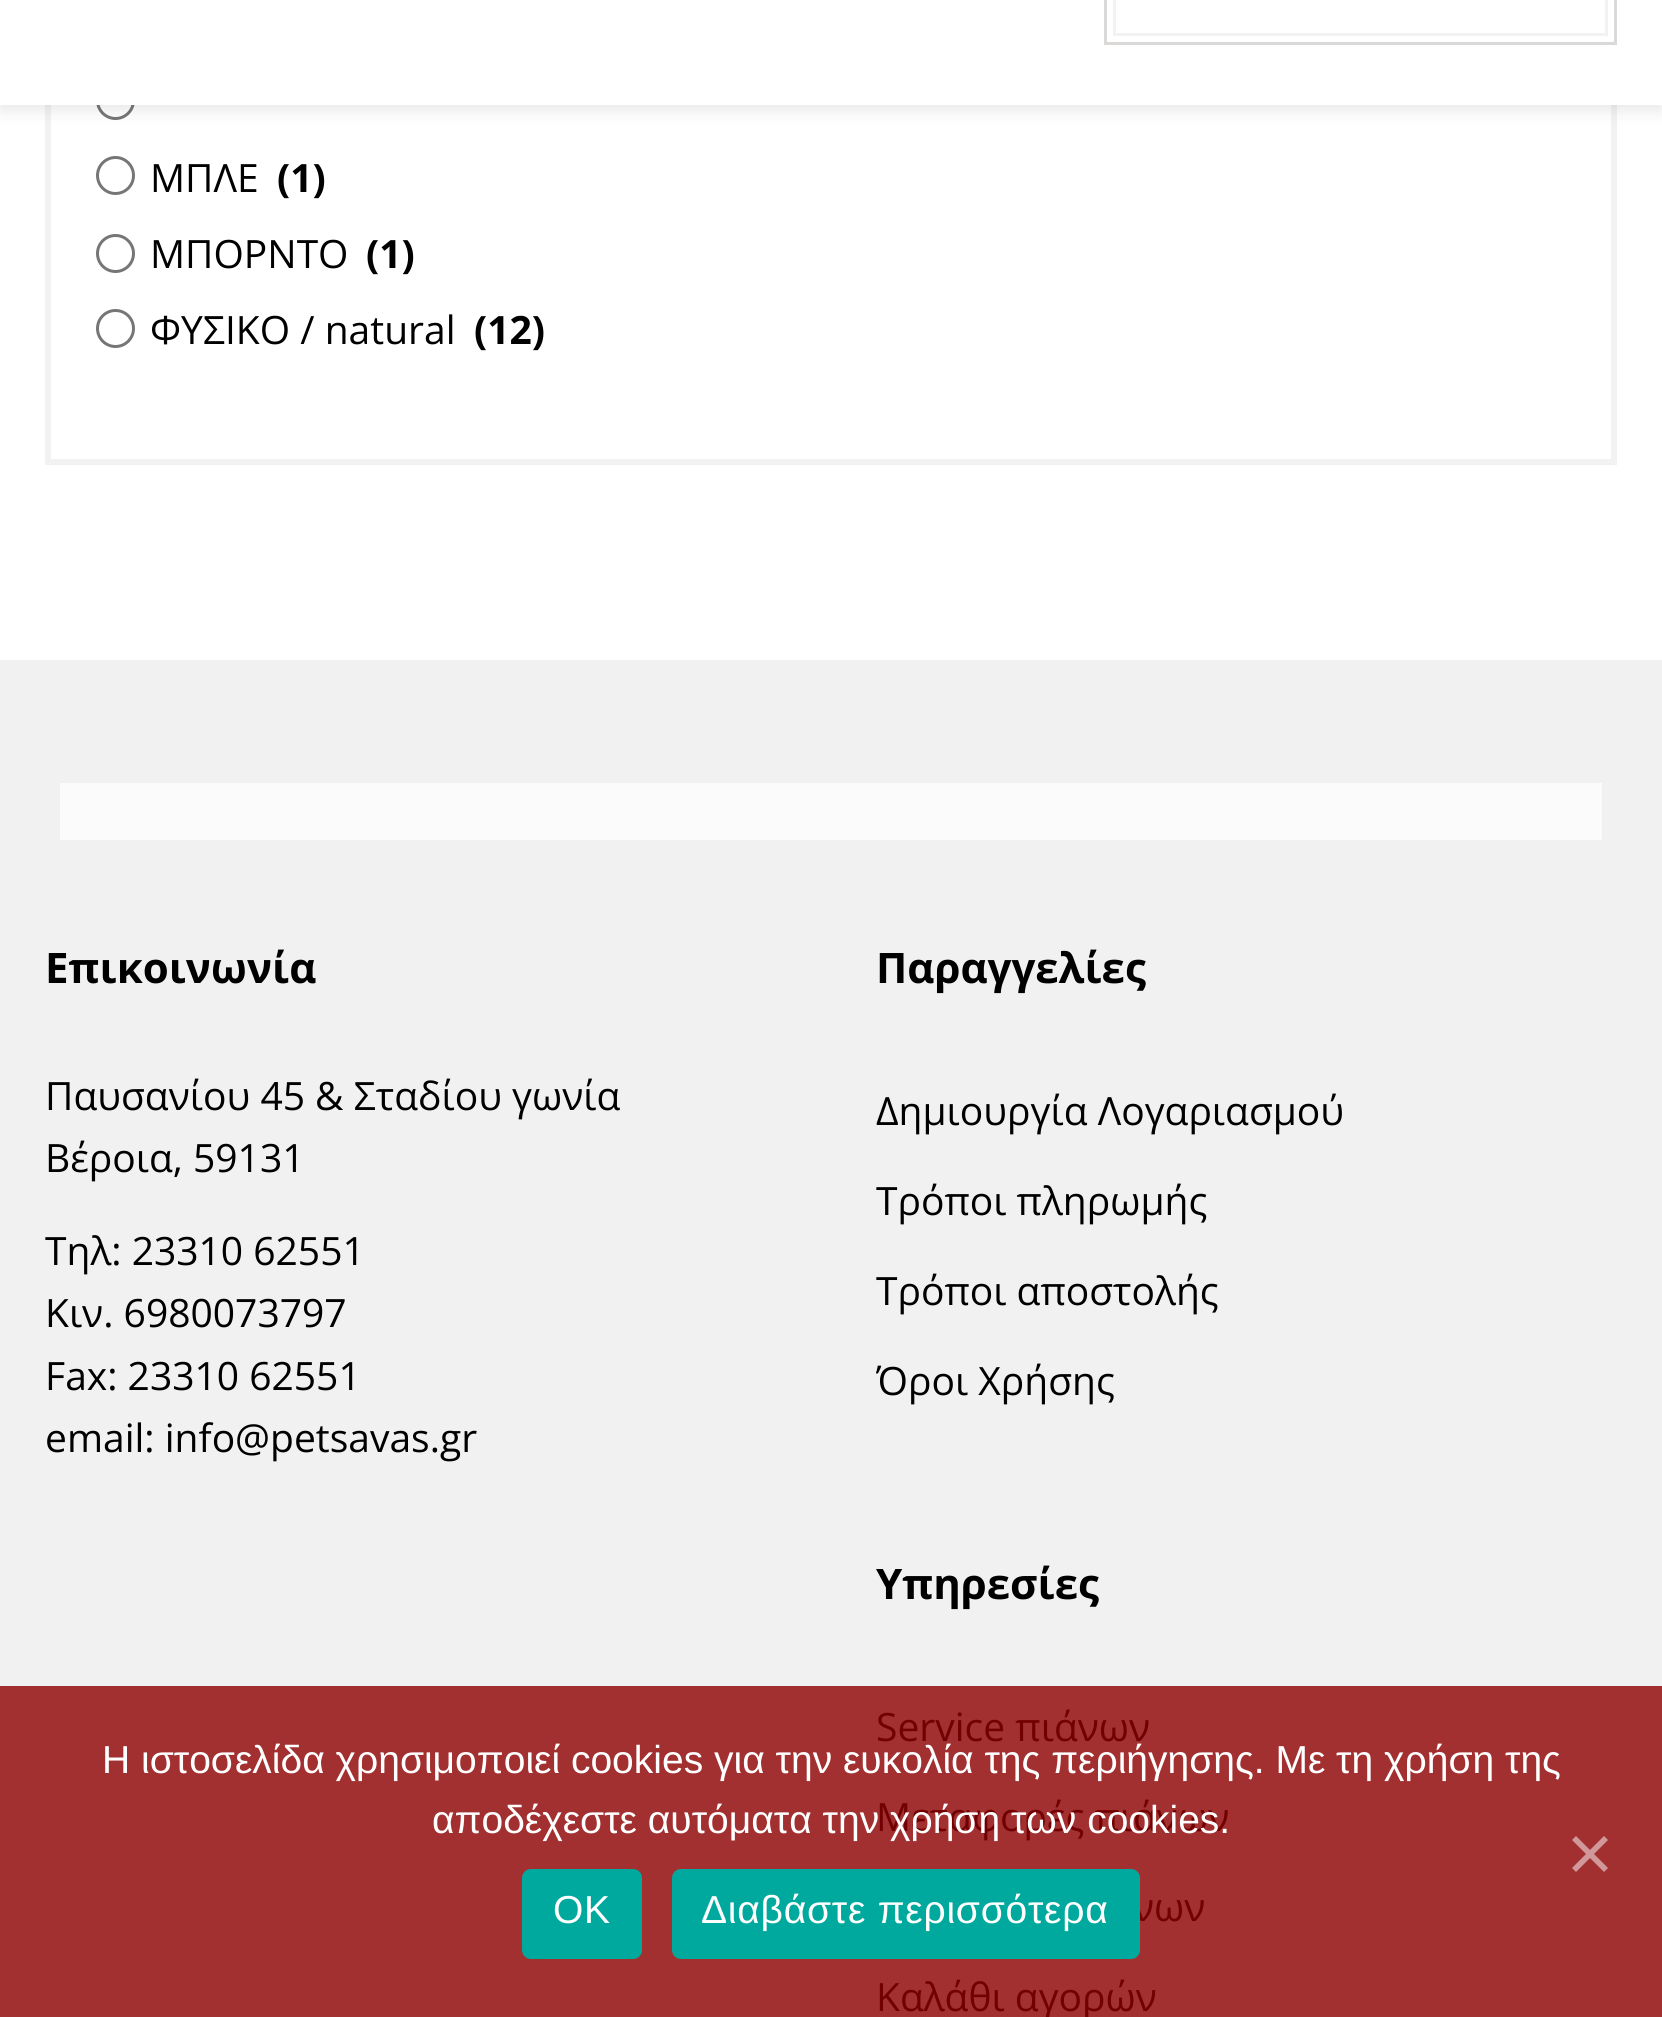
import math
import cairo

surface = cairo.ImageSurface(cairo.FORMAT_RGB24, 1662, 2017)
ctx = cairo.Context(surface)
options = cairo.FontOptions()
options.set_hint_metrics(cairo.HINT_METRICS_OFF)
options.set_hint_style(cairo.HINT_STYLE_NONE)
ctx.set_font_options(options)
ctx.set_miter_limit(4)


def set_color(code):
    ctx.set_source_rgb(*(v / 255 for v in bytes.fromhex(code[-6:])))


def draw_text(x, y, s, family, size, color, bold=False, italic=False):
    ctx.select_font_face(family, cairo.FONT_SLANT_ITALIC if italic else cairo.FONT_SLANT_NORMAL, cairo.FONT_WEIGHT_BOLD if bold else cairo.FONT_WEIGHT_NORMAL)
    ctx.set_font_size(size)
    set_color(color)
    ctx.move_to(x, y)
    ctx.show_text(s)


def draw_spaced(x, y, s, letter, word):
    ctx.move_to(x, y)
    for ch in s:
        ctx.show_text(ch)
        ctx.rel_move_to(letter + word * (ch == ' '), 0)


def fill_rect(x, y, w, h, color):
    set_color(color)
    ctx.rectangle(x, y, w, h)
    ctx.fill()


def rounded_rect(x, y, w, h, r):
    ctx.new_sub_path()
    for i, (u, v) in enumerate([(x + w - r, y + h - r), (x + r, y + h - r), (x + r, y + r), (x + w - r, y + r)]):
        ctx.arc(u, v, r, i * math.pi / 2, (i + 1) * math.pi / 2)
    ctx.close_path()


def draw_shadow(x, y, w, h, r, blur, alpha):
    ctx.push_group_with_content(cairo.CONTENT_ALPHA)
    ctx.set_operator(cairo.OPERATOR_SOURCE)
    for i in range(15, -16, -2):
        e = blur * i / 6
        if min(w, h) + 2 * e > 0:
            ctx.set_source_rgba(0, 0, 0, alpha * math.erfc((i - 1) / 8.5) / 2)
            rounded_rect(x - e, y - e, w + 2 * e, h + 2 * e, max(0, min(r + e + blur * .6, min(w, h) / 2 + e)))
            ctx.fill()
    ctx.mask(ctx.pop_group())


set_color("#ffffff")
ctx.paint()
ctx.rectangle(48, -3, 1566, 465)
set_color("#f2f2f2")
ctx.set_line_width(6)
ctx.stroke()
ctx.arc(115.5, 100.5, 18, 0, 2 * math.pi)
set_color("#767676")
ctx.set_line_width(3)
ctx.stroke()
set_color("#1e1e1e")
draw_shadow(0, -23, 1662, 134, 0, 7.5, 0.1)
fill_rect(0, 0, 1662, 105, "#ffffff")
ctx.rectangle(1105.5, -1.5, 510, 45)
set_color("#dbd8d8")
ctx.stroke()
ctx.rectangle(1114.5, -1.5, 492, 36)
set_color("#f2f2f2")
ctx.stroke()
ctx.arc(115.5, 175.5, 18, 0, 2 * math.pi)
set_color("#767676")
ctx.stroke()
draw_text(150, 192, "ΜΠΛΕ", "Open Sans", 39, "#000000")
draw_text(277, 192, "(1)", "Open Sans", 39, "#000000", bold=True)
ctx.new_path()
ctx.arc(115.5, 253.5, 18, 0, 2 * math.pi)
set_color("#767676")
ctx.stroke()
draw_text(150, 268, "ΜΠΟΡΝΤΟ", "Open Sans", 39, "#000000")
draw_text(366, 268, "(1)", "Open Sans", 39, "#000000", bold=True)
ctx.new_path()
ctx.arc(115.5, 328.5, 18, 0, 2 * math.pi)
set_color("#767676")
ctx.stroke()
draw_text(150, 344, "ΦΥΣΙΚΟ / natural", "Open Sans", 39, "#000000")
draw_text(474, 344, "(12)", "Open Sans", 39, "#000000", bold=True)
fill_rect(0, 660, 1662, 1026, "#f1f1f1")
fill_rect(0, 1686, 1662, 331, "#a23030")
fill_rect(60, 783, 1542, 57, "#fbfbfb")
draw_text(45, 983, "Επικοινωνία", "Open Sans", 42, "#000000", bold=True)
draw_text(45, 1110, "Παυσανίου 45 & Σταδίου γωνία", "Open Sans", 39, "#000000")
draw_text(45, 1172, "Βέροια, 59131", "Open Sans", 39, "#000000")
draw_text(45, 1265, "Τηλ: 23310 62551", "Open Sans", 39, "#000000")
draw_text(45, 1327, "Κιν. 6980073797", "Open Sans", 39, "#000000")
draw_text(45, 1390, "Fax: 23310 62551", "Open Sans", 39, "#000000")
draw_text(45, 1452, "email: info@petsavas.gr", "Open Sans", 39, "#000000")
draw_text(876, 983, "Παραγγελίες", "Open Sans", 42, "#000000", bold=True)
draw_text(876, 1125, "Δημιουργία Λογαριασμού", "Open Sans", 39, "#000000")
draw_text(876, 1215, "Τρόποι πληρωμής", "Open Sans", 39, "#000000")
draw_text(876, 1305, "Τρόποι αποστολής", "Open Sans", 39, "#000000")
draw_text(876, 1395, "Όροι Χρήσης", "Open Sans", 39, "#000000")
draw_text(876, 1599, "Υπηρεσίες", "Open Sans", 42, "#000000", bold=True)
draw_text(876, 1741, "Service πιάνων", "Open Sans", 39, "#720000")
draw_text(876, 1831, "Μεταφορές πιάνων", "Open Sans", 39, "#720000")
draw_text(1133, 1921, "νων", "Open Sans", 39, "#720000")
draw_text(876, 2011, "Καλάθι αγορών", "Open Sans", 39, "#720000")
draw_text(102, 1773, "Η ιστοσελίδα χρησιμοποιεί cookies για την ευκολία της περιήγησης. Με τη χρήση της", "Liberation Sans", 39, "#ffffff")
draw_text(432, 1833, "αποδέχεστε αυτόματα την χρήση των cookies.", "Liberation Sans", 39, "#ffffff")
set_color("#d09898")
ctx.new_path()
ctx.move_to(1604, 1836)
ctx.line_to(1608, 1840)
ctx.line_to(1576, 1872)
ctx.line_to(1572, 1868)
ctx.close_path()
ctx.fill()
ctx.new_path()
ctx.move_to(1572, 1840)
ctx.line_to(1576, 1836)
ctx.line_to(1608, 1868)
ctx.line_to(1604, 1872)
ctx.close_path()
ctx.fill()
set_color("#00a99d")
rounded_rect(522, 1869, 120, 90, 9)
ctx.fill()
set_color("#ffffff")
draw_spaced(553, 1923, "OK", 0.75, 0)
set_color("#00a99d")
rounded_rect(672, 1869, 468, 90, 9)
ctx.fill()
set_color("#ffffff")
draw_spaced(701, 1923, "Διαβάστε περισσότερα", 0.75, 0)
surface.write_to_png("output.png")
